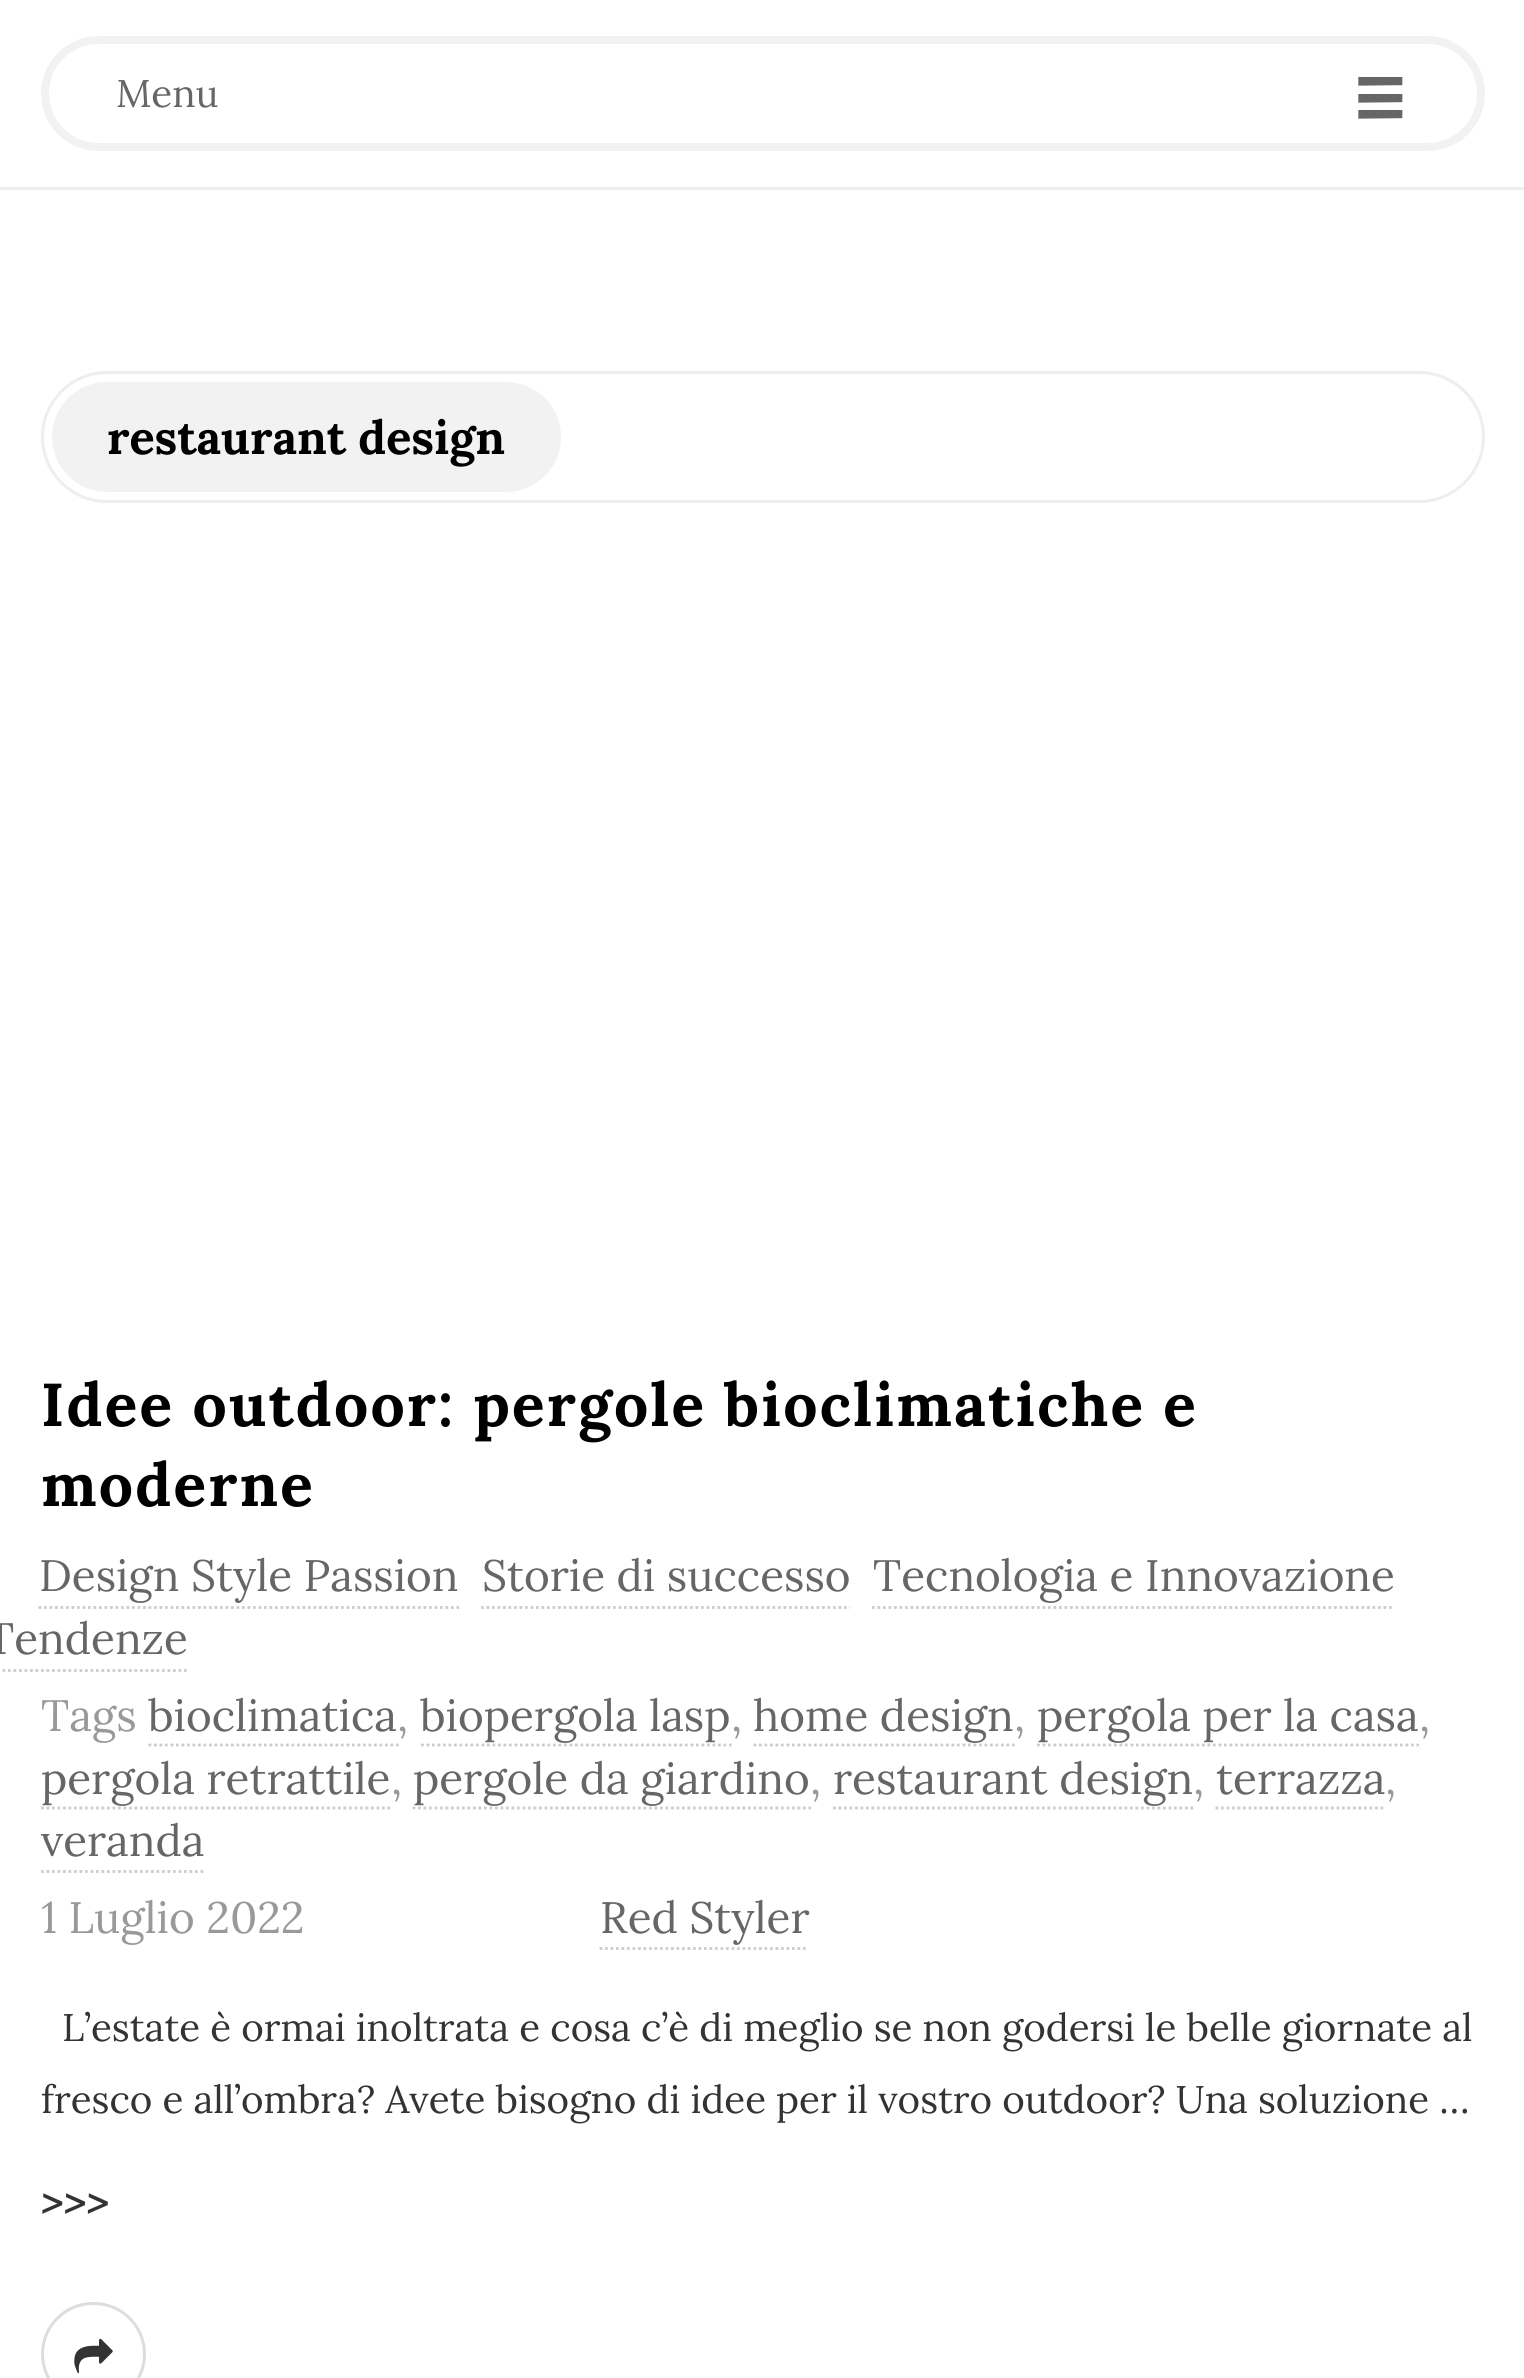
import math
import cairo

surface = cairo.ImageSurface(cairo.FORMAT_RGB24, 1524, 2378)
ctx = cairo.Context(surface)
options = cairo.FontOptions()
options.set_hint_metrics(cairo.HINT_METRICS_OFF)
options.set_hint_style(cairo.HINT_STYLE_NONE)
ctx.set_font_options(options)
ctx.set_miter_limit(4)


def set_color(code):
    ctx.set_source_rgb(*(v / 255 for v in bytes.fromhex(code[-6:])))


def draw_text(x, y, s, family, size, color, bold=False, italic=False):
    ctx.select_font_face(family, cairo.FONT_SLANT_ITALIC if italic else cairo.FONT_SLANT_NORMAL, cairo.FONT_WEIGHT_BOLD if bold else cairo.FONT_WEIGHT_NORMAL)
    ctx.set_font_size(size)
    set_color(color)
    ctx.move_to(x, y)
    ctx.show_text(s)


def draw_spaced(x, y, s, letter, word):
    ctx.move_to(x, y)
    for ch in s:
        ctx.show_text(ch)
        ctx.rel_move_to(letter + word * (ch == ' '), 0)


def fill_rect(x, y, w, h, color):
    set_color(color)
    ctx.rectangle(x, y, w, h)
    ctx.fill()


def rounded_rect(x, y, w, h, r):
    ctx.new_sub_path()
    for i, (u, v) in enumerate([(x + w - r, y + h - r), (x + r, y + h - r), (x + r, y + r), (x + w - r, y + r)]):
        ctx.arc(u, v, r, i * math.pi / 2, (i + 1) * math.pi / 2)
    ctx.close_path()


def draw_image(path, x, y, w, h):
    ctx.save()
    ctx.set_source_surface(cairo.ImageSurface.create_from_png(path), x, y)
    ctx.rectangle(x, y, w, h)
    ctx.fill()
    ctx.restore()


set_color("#ffffff")
ctx.paint()
fill_rect(0, 187, 1524, 3, "#eeeeee")
rounded_rect(45, 40, 1436, 107, 53.5)
set_color("#f2f2f2")
ctx.set_line_width(8)
ctx.stroke()
draw_text(116, 107, "Menu", "Lora", 38.5, "#666666")
draw_text(1350, 121, "-", "Lora", 124, "#666666")
draw_text(1350, 138, "-", "Lora", 124, "#666666")
draw_text(1350, 154, "-", "Lora", 124, "#666666")
rounded_rect(42.5, 372.5, 1441, 129, 64.5)
set_color("#eeeeee")
ctx.set_line_width(3)
ctx.stroke()
set_color("#f2f2f2")
rounded_rect(52, 382, 509, 110, 55)
ctx.fill()
draw_text(107, 454, "restaurant design", "Lora", 46.75, "#000000", bold=True)
ctx.set_font_size(60.5)
draw_spaced(41, 1426, "Idee outdoor: pergole bioclimatiche e", 2.2, 0)
draw_spaced(41, 1506, "moderne", 2.2, 0)
draw_text(39, 1591, "Design Style Passion", "Lora", 44, "#666666")
ctx.new_path()
ctx.move_to(38.5, 1607.5)
ctx.line_to(459, 1607.5)
set_color("#cccccc")
ctx.set_line_width(2.8)
ctx.set_dash([2.75, 2.75])
ctx.stroke()
draw_text(482, 1591, "Storie di successo", "Lora", 44, "#666666")
ctx.new_path()
ctx.move_to(481, 1607.5)
ctx.line_to(850, 1607.5)
set_color("#cccccc")
ctx.stroke()
draw_text(873, 1591, "Tecnologia e Innovazione", "Lora", 44, "#666666")
ctx.new_path()
ctx.move_to(872, 1607.5)
ctx.line_to(1394, 1607.5)
set_color("#cccccc")
ctx.stroke()
draw_text(-14, 1654, "Tendenze", "Lora", 44, "#666666")
ctx.new_path()
ctx.move_to(-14, 1670.5)
ctx.line_to(187, 1670.5)
set_color("#cccccc")
ctx.stroke()
draw_text(41, 1731, "Tags", "Lora", 44, "#999999")
draw_text(148, 1731, "bioclimatica", "Lora", 44, "#666666")
ctx.new_path()
ctx.move_to(148.5, 1745)
ctx.line_to(399, 1745)
set_color("#cccccc")
ctx.stroke()
draw_text(397, 1731, ",", "Lora", 44, "#999999")
draw_text(420, 1731, "biopergola lasp", "Lora", 44, "#666666")
ctx.new_path()
ctx.move_to(421, 1745)
ctx.line_to(731.5, 1745)
set_color("#cccccc")
ctx.stroke()
draw_text(731, 1731, ",", "Lora", 44, "#999999")
draw_text(753, 1731, "home design", "Lora", 44, "#666666")
ctx.new_path()
ctx.move_to(753.5, 1745)
ctx.line_to(1015, 1745)
set_color("#cccccc")
ctx.stroke()
draw_text(1014, 1731, ",", "Lora", 44, "#999999")
draw_text(1037, 1731, "pergola per la casa", "Lora", 44, "#666666")
ctx.new_path()
ctx.move_to(1037, 1745)
ctx.line_to(1419, 1745)
set_color("#cccccc")
ctx.stroke()
draw_text(1419, 1731, ",", "Lora", 44, "#999999")
draw_text(41, 1794, "pergola retrattile", "Lora", 44, "#666666")
ctx.new_path()
ctx.move_to(41, 1808)
ctx.line_to(390.5, 1808)
set_color("#cccccc")
ctx.stroke()
draw_text(391, 1794, ",", "Lora", 44, "#999999")
draw_text(413, 1794, "pergole da giardino", "Lora", 44, "#666666")
ctx.new_path()
ctx.move_to(412.5, 1808)
ctx.line_to(811, 1808)
set_color("#cccccc")
ctx.stroke()
draw_text(810, 1794, ",", "Lora", 44, "#999999")
draw_text(833, 1794, "restaurant design", "Lora", 44, "#666666")
ctx.new_path()
ctx.move_to(833, 1808)
ctx.line_to(1193.5, 1808)
set_color("#cccccc")
ctx.stroke()
draw_text(1193, 1794, ",", "Lora", 44, "#999999")
draw_text(1216, 1794, "terrazza", "Lora", 44, "#666666")
ctx.new_path()
ctx.move_to(1215.5, 1808)
ctx.line_to(1386, 1808)
set_color("#cccccc")
ctx.stroke()
draw_text(1385, 1794, ",", "Lora", 44, "#999999")
draw_text(41, 1856, "veranda", "Lora", 44, "#666666")
ctx.new_path()
ctx.move_to(41, 1871.5)
ctx.line_to(203.5, 1871.5)
set_color("#cccccc")
ctx.stroke()
draw_text(41, 1933, "1 Luglio 2022", "Lora", 44, "#999999")
draw_text(600, 1933, "Red Styler", "Lora", 44, "#666666")
ctx.new_path()
ctx.move_to(599.5, 1948.5)
ctx.line_to(808.5, 1948.5)
set_color("#cccccc")
ctx.stroke()
draw_text(62, 2041, "L’estate è ormai inoltrata e cosa c’è di meglio se non godersi le belle giornate al", "Lora", 38.5, "#333333")
draw_text(41, 2113, "fresco e all’ombra? Avete bisogno di idee per il vostro outdoor? Una soluzione …", "Lora", 38.5, "#333333")
ctx.select_font_face("Lora", cairo.FONT_SLANT_ITALIC, cairo.FONT_WEIGHT_BOLD)
ctx.set_font_size(41)
draw_spaced(41, 2217, ">>>", 1, 0)
rounded_rect(42.5, 2303.5, 102, 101, 50.5)
set_color("#dddddd")
ctx.set_line_width(3)
ctx.set_dash([])
ctx.stroke()
draw_image("assets/img1.png", 74, 2338, 39, 36)
surface.write_to_png("output.png")
